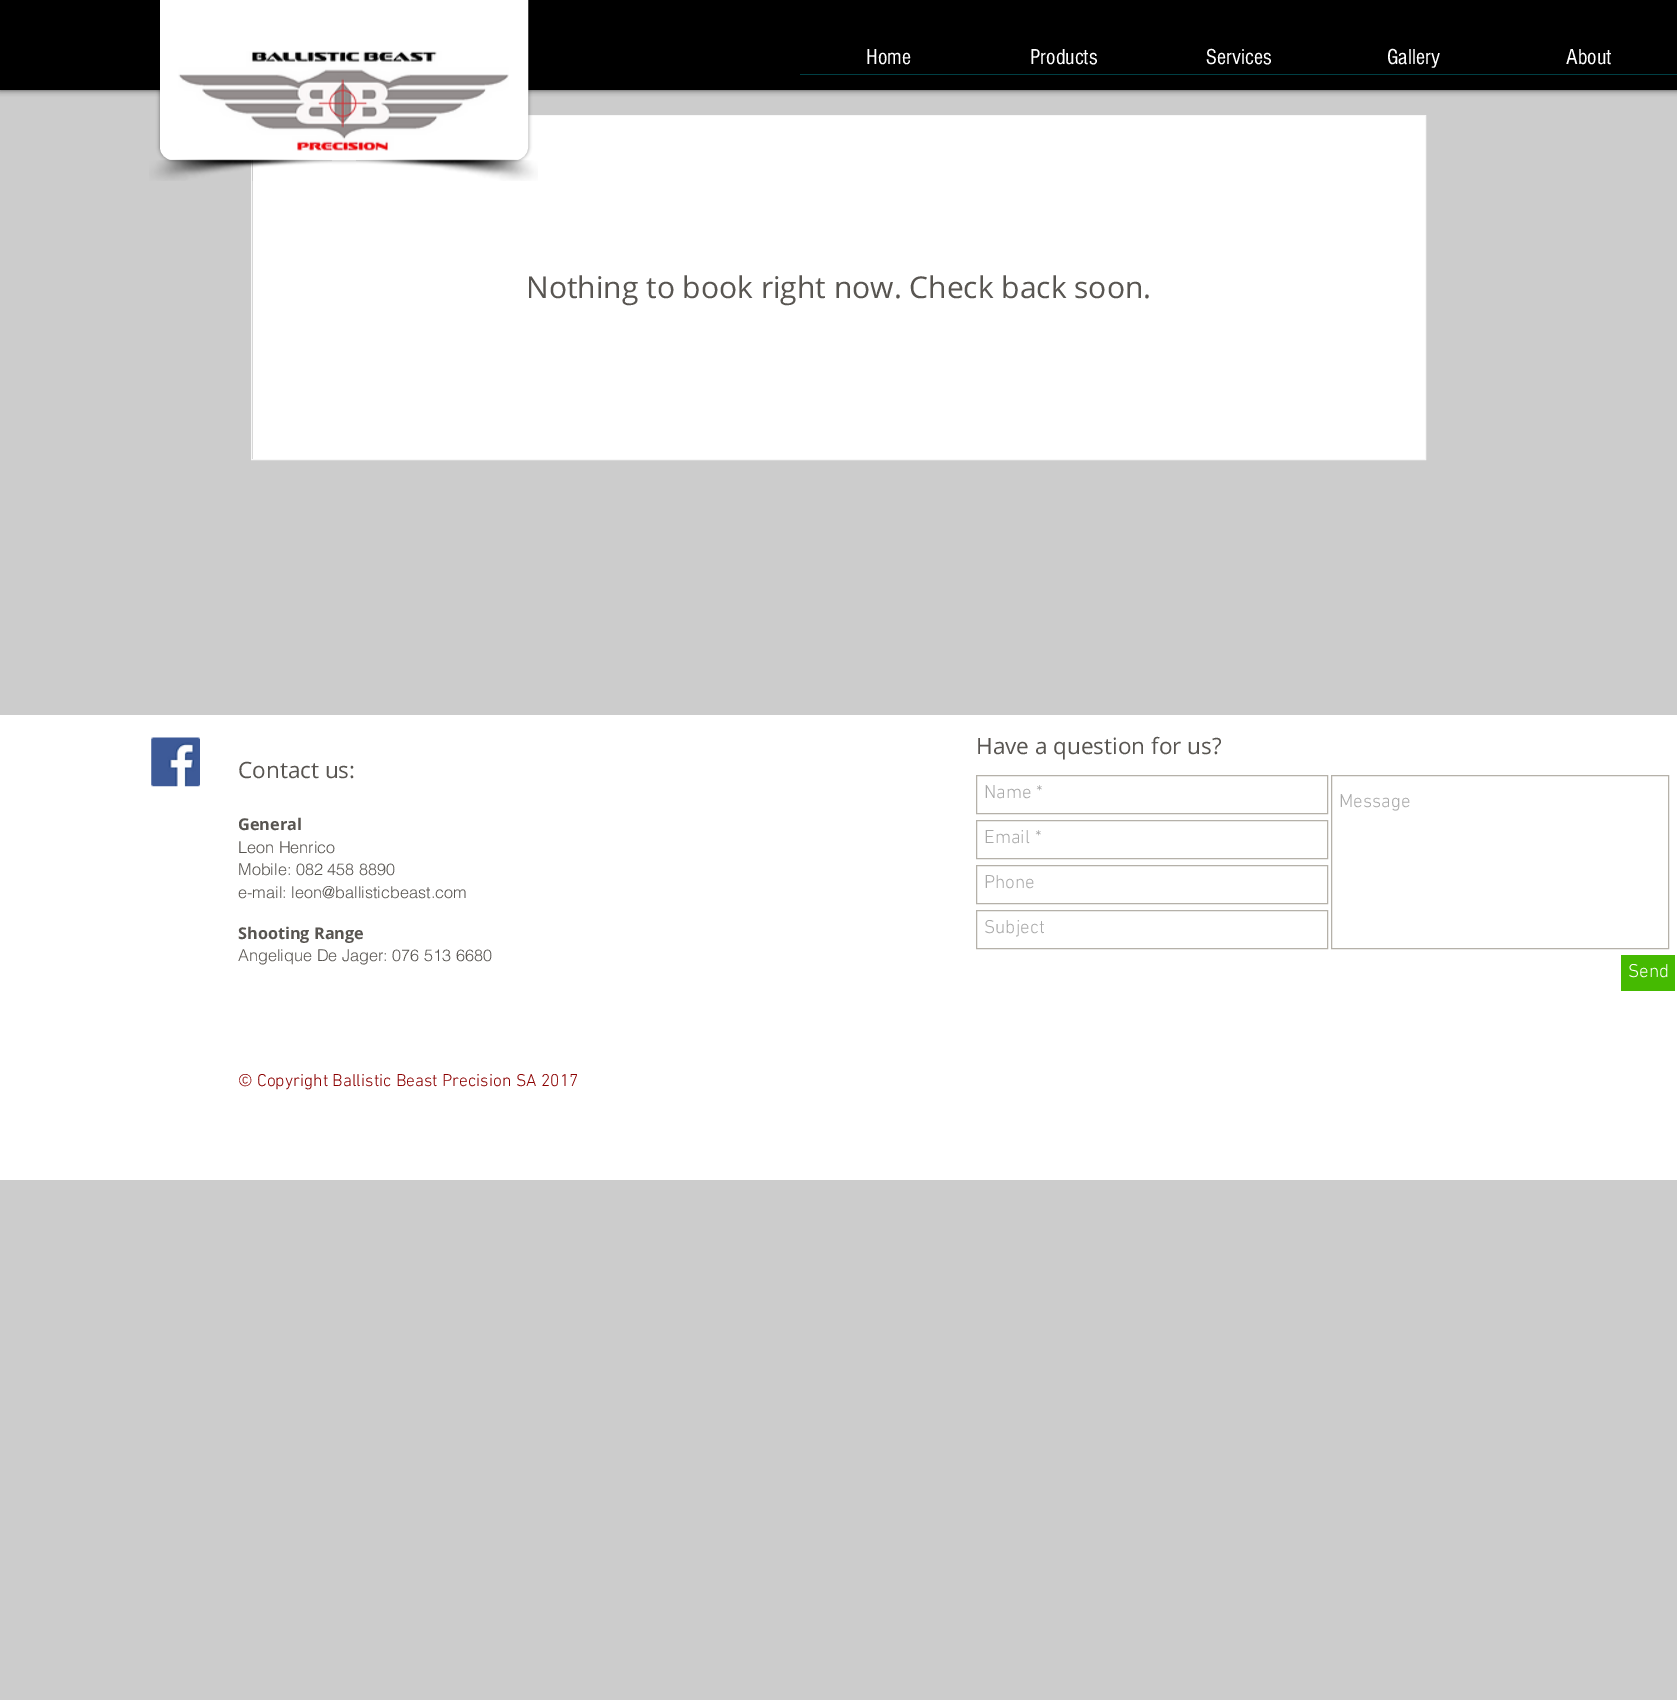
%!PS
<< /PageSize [1677 1700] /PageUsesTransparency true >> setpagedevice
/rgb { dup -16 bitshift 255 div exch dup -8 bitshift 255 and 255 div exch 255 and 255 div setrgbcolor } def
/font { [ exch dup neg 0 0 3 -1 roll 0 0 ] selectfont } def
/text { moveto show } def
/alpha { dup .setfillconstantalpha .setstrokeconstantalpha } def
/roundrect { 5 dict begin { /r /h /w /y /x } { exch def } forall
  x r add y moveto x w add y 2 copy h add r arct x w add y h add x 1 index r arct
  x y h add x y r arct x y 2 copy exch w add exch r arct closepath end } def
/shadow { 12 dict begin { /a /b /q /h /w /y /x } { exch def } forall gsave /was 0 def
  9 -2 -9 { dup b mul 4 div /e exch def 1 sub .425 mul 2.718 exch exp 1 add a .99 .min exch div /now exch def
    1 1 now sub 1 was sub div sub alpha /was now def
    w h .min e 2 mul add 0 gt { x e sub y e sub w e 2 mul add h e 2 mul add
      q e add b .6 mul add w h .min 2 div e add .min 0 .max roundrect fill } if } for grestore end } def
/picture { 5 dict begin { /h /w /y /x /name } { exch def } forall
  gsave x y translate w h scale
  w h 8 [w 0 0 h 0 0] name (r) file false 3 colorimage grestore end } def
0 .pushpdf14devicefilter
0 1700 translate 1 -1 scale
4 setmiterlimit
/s1 { /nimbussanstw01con-Regular 22.5 font 16#FFFFFF rgb } def
/s2 { /OpenSans-Regular 30 font 16#585551 rgb } def
/s3 { /OpenSans-Regular 22.5 font 16#585551 rgb } def
/s4 { /OpenSans-Bold 16.25 font 16#585551 rgb } def
/s5 { /helvetica-Light 16.25 font 16#585551 rgb } def
/s6 { /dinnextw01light-Light 19 font 16#A9A9A9 rgb } def
/s7 { /dinnextw01light-Light 19 font 16#FFFFFF rgb } def
/s8 { /dinnextw01light-Light 17.5 font 16#8B0000 rgb } def
16#CCCCCC rgb
0 0 1677 1700 rectfill
16#000000 rgb
0 0 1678 90 0 3 0.7 shadow
0 0 1677 90 rectfill
16#F8F8F8 rgb
251.5 115.5 1174 344 rectstroke
16#FFFFFF rgb
253 116 1172 343 rectfill
16#000000 rgb
160 0 368 160 13 2 0.5 shadow
16#FFFFFF rgb
162 2 moveto 526 2 lineto 526 147 lineto 526 153 521 158 515 158 curveto 173 158 lineto 167 158 162 153 162 147 curveto closepath gsave fill grestore
4 setlinewidth
stroke
(pic1.raw) 178 51 331 100 picture
(pic2.raw) 149 159 183 22 picture
(pic3.raw) 356 159 182 22 picture
s1
(Home) 866 64 text
(Products) 1030 64 text
(Services) 1206 64 text
(Gallery) 1387 64 text
(About) 1566 64 text
16#003F44 rgb
800 74 877 1 rectfill
s2
(Nothing to book right now. Check back soon.) 526 298 text
16#FFFFFF rgb
0 715 1677 465 rectfill
(pic4.raw) 151 737 49 50 picture
s3
(Contact us:) 238 778 text
s4
(General) 238 830 text
s5
(Leon Henrico) 238 853 text
(Mobile: 082 458 8890) 238 875 text
(e-mail: leon@ballisticbeast.com) 238 898 text
s4
(Shooting Range) 238 939 text
s5
(Angelique De Jager: 076 513 6680) 238 961 text
s3
(Have a question for us?) 976 754 text
16#B5B1A9 rgb
1 setlinewidth
976.5 775.5 351 38 rectstroke
s6
(Name *) 984 798 text
16#B5B1A9 rgb
1331.5 775.5 337 173 rectstroke
s6
(Message) 1339 807 text
16#B5B1A9 rgb
976.5 820.5 351 38 rectstroke
s6
(Email *) 984 843 text
16#B5B1A9 rgb
976.5 865.5 351 38 rectstroke
s6
(Phone) 984 888 text
16#B5B1A9 rgb
976.5 910.5 351 38 rectstroke
s6
(Subject) 984 933 text
16#45BA01 rgb
1621 955 54 36 rectfill
s7
(Send) 1628 977 text
s8
(© Copyright Ballistic Beast Precision SA 2017) 238 1086 text
.poppdf14devicefilter showpage
